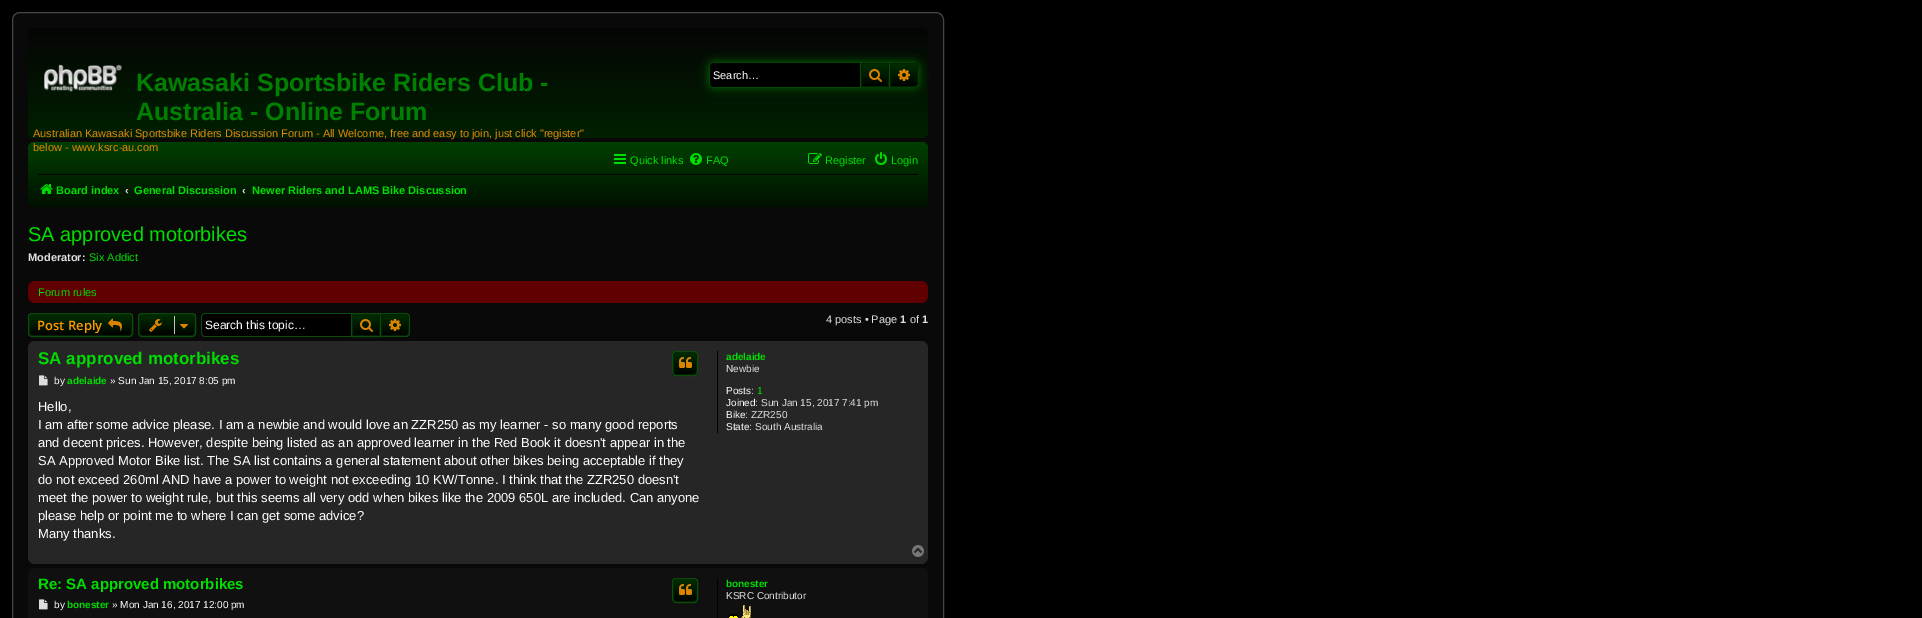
%!PS
<< /PageSize [1922 618] /PageUsesTransparency true >> setpagedevice
/rgb { dup -16 bitshift 255 div exch dup -8 bitshift 255 and 255 div exch 255 and 255 div setrgbcolor } def
/font { [ exch dup neg 0 0 3 -1 roll 0 0 ] selectfont } def
/text { moveto show } def
/alpha { dup .setfillconstantalpha .setstrokeconstantalpha } def
/roundrect { 5 dict begin { /r /h /w /y /x } { exch def } forall
  x r add y moveto x w add y 2 copy h add r arct x w add y h add x 1 index r arct
  x y h add x y r arct x y 2 copy exch w add exch r arct closepath end } def
/shadow { 12 dict begin { /a /b /q /h /w /y /x } { exch def } forall gsave /was 0 def
  9 -2 -9 { dup b mul 4 div /e exch def 1 sub .425 mul 2.718 exch exp 1 add a .99 .min exch div /now exch def
    1 1 now sub 1 was sub div sub alpha /was now def
    w h .min e 2 mul add 0 gt { x e sub y e sub w e 2 mul add h e 2 mul add
      q e add b .6 mul add w h .min 2 div e add .min 0 .max roundrect fill } if } for grestore end } def
/picture { 5 dict begin { /h /w /y /x /name } { exch def } forall
  gsave x y translate w h scale
  w h 8 [w 0 0 h 0 0] name (r) file false 3 colorimage grestore end } def
0 .pushpdf14devicefilter
0 618 translate 1 -1 scale
4 setmiterlimit
/s1 { /LiberationSans-Bold 25 font 16#008000 rgb } def
/s2 { /LiberationSans-Regular 11 font 16#E3860A rgb } def
/s3 { /LiberationSans-Regular 11 font 16#FFFFFF rgb } def
/s4 { /LiberationSans-Regular 11 font 16#00DD00 rgb } def
/s5 { /LiberationSans-Bold 11 font 16#00DD00 rgb } def
/s6 { /LiberationSans-Bold 11 font 16#E0E0E0 rgb } def
/s7 { /LiberationSans-Regular 20 font 16#00DD00 rgb } def
/s8 { /OpenSans-SemiBold 13 font 16#FF9900 rgb } def
/s9 { /LiberationSans-Regular 12 font 16#FFFFFF rgb } def
/s10 { /LiberationSans-Regular 11 font 16#E0E0E0 rgb } def
/s11 { /LiberationSans-Bold 17 font 16#00DD00 rgb } def
/s12 { /LiberationSans-Regular 10 font 16#FFFFFF rgb } def
/s13 { /LiberationSans-Bold 10 font 16#00DD00 rgb } def
/s14 { /LiberationSans-Regular 13 font 16#FFFFFF rgb } def
/s15 { /LiberationSans-Regular 10 font 16#E0E0E0 rgb } def
/s16 { /LiberationSans-Regular 10 font 16#00DD00 rgb } def
/s17 { /LiberationSans-Bold 15 font 16#00DD00 rgb } def
16#000000 rgb
0 0 1922 618 rectfill
16#090909 rgb
12.5 12.5 931 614 7.5 roundrect gsave fill grestore
16#454545 rgb
stroke
gsave 28 28 900 110 7 roundrect clip newpath
<< /ShadingType 2 /ColorSpace /DeviceRGB /Coords [478 28 478 138] /Extend [true true] /Function << /FunctionType 2 /Domain [0 1] /C0 [0.02 0.02 0.02] /C1 [0 0.125 0] /N 1 >> >> shfill grestore
(pic1.raw) 44 64 78 28 picture
s1
(Kawasaki Sportsbike Riders Club -) 136 91 text
(Australia - Online Forum) 136 120 text
s2
(Australian Kawasaki Sportsbike Riders Discussion Forum - All Welcome, free and easy to join, just click "register") 33 137 text
gsave 28 142 900 65 7 roundrect clip newpath
<< /ShadingType 2 /ColorSpace /DeviceRGB /Coords [478 142 478 207] /Extend [true true] /Function << /FunctionType 2 /Domain [0 1] /C0 [0 0.251 0] /C1 [0 0.063 0] /N 1 >> >> shfill grestore
(below - www.ksrc-au.com) 33 151 text
16#007F00 rgb
710 63 208 24 4 5 1 shadow
16#000000 rgb
714 63 moveto 860 63 lineto 860 87 lineto 714 87 lineto 712 87 710 85 710 83 curveto 710 67 lineto 710 65 712 63 714 63 curveto closepath fill
s3
(Search…) 713 79 text
gsave 862 64 moveto 888 64 lineto 888 86 lineto 862 86 lineto closepath clip newpath
<< /ShadingType 2 /ColorSpace /DeviceRGB /Coords [875 63 875 87] /Extend [true true] /Function << /FunctionType 2 /Domain [0 1] /C0 [0 0.188 0] /C1 [0 0 0] /N 1 >> >> shfill grestore
16#002000 rgb
861.5 63.5 27 23 rectstroke
16#0C4B0C rgb
889 63 1 24 rectfill
860 63 1 24 rectfill
(pic2.raw) 869 69 13 13 picture
gsave 890.5 63.5 moveto 914 63.5 lineto 916 63.5 917.5 65 917.5 67 curveto 917.5 83 lineto 917.5 85 916 86.5 914 86.5 curveto 890.5 86.5 lineto closepath clip newpath
<< /ShadingType 2 /ColorSpace /DeviceRGB /Coords [904 63 904 87] /Extend [true true] /Function << /FunctionType 2 /Domain [0 1] /C0 [0 0.188 0] /C1 [0 0 0] /N 1 >> >> shfill grestore
16#002000 rgb
890.5 63.5 moveto 914 63.5 lineto 916 63.5 917.5 65 917.5 67 curveto 917.5 83 lineto 917.5 85 916 86.5 914 86.5 curveto 890.5 86.5 lineto closepath stroke
(pic3.raw) 898 69 12 12 picture
(pic4.raw) 614 154 12 10 picture
s4
(Quick links) 630 164 text
(pic5.raw) 690 153 12 12 picture
(FAQ) 706 164 text
(pic6.raw) 808 153 14 11 picture
(Register) 825 164 text
(pic7.raw) 875 152 12 13 picture
(Login) 891 164 text
16#000000 rgb
38 174 880 1 rectfill
(pic8.raw) 40 184 13 10 picture
s5
(Board index) 56 194 text
s6
(‹) 125 194 text
s5
(General Discussion) 134 194 text
s6
(‹) 242 194 text
s5
(Newer Riders and LAMS Bike Discussion) 252 194 text
s7
(SA approved motorbikes) 28 241 text
s6
(Moderator:) 28 261 text
s4
(Six Addict) 89 261 text
16#600000 rgb
28 281 900 22 7 roundrect fill
s4
(Forum rules) 38 296 text
gsave
28 313 105 24 4 roundrect clip newpath
gsave 28 314 moveto 133 314 lineto 133 336 lineto 28 336 lineto closepath clip newpath
<< /ShadingType 2 /ColorSpace /DeviceRGB /Coords [81 314 81 336] /Extend [true true] /Function << /FunctionType 2 /Domain [0 1] /C0 [0 0.188 0] /C1 [0 0 0] /N 1 >> >> shfill grestore
grestore
16#002000 rgb
29.5 314.5 102 21 2.5 roundrect stroke
16#0C4B0C rgb
28.5 313.5 104 23 3.5 roundrect stroke
s8
(Post Reply) 37 330 text
(pic9.raw) 108 318 14 13 picture
gsave
138 313 58 24 4 roundrect clip newpath
gsave 138 314 moveto 196 314 lineto 196 336 lineto 138 336 lineto closepath clip newpath
<< /ShadingType 2 /ColorSpace /DeviceRGB /Coords [167 314 167 336] /Extend [true true] /Function << /FunctionType 2 /Domain [0 1] /C0 [0 0.188 0] /C1 [0 0 0] /N 1 >> >> shfill grestore
grestore
16#002000 rgb
139.5 314.5 55 21 2.5 roundrect stroke
16#0C4B0C rgb
138.5 313.5 57 23 3.5 roundrect stroke
(pic10.raw) 149 319 13 13 picture
16#C7C3BF rgb
174 316 1 18 rectfill
(pic11.raw) 180 324 8 5 picture
16#000000 rgb
205 314 moveto 351 314 lineto 351 336 lineto 205 336 lineto 203.5 336 202 334.5 202 333 curveto 202 317 lineto 202 315.5 203.5 314 205 314 curveto closepath fill
16#0C4B0C rgb
205 313 moveto 351 313 lineto 351 337 lineto 205 337 lineto 203 337 201 335 201 333 curveto 201 317 lineto 201 315 203 313 205 313 curveto closepath 205 314 moveto 351 314 lineto 351 336 lineto 205 336 lineto 203 336 202 335 202 333 curveto 202 317 lineto 202 315 203 314 205 314 curveto closepath eofill
s9
(Search this topic…) 205 329 text
gsave 353 315 moveto 379 315 lineto 379 335 lineto 353 335 lineto closepath clip newpath
<< /ShadingType 2 /ColorSpace /DeviceRGB /Coords [366 314 366 336] /Extend [true true] /Function << /FunctionType 2 /Domain [0 1] /C0 [0 0.188 0] /C1 [0 0 0] /N 1 >> >> shfill grestore
16#002000 rgb
352.5 314.5 27 21 rectstroke
16#0C4B0C rgb
351.5 313.5 29 23 rectstroke
(pic12.raw) 360 319 13 13 picture
gsave 381.5 314.5 moveto 406 314.5 lineto 407.5 314.5 408.5 315.5 408.5 317 curveto 408.5 333 lineto 408.5 334.5 407.5 335.5 406 335.5 curveto 381.5 335.5 lineto closepath clip newpath
<< /ShadingType 2 /ColorSpace /DeviceRGB /Coords [395 314 395 336] /Extend [true true] /Function << /FunctionType 2 /Domain [0 1] /C0 [0 0.188 0] /C1 [0 0 0] /N 1 >> >> shfill grestore
16#002000 rgb
381.5 314.5 moveto 406 314.5 lineto 407.5 314.5 408.5 315.5 408.5 317 curveto 408.5 333 lineto 408.5 334.5 407.5 335.5 406 335.5 curveto 381.5 335.5 lineto closepath stroke
16#0C4B0C rgb
381 313 moveto 406 313 lineto 408 313 410 315 410 317 curveto 410 333 lineto 410 335 408 337 406 337 curveto 381 337 lineto closepath 381 314 moveto 406 314 lineto 407.5 314 409 315.5 409 317 curveto 409 333 lineto 409 334.5 407.5 336 406 336 curveto 381 336 lineto closepath eofill
(pic13.raw) 389 319 12 12 picture
s10
(4 posts • Page) 826 323 text
s6
(1) 900 323 text
s10
(of) 910 323 text
s6
(1) 922 323 text
16#262626 rgb
28 341 900 223 7 roundrect fill
s11
(SA approved motorbikes) 38 364 text
gsave
672 351 26 25 4 roundrect clip newpath
gsave 672 352 moveto 698 352 lineto 698 375 lineto 672 375 lineto closepath clip newpath
<< /ShadingType 2 /ColorSpace /DeviceRGB /Coords [685 352 685 375] /Extend [true true] /Function << /FunctionType 2 /Domain [0 1] /C0 [0 0.188 0] /C1 [0 0 0] /N 1 >> >> shfill grestore
grestore
16#002000 rgb
673.5 352.5 23 22 2.5 roundrect stroke
16#0C4B0C rgb
672.5 351.5 25 24 3.5 roundrect stroke
(pic14.raw) 679 357 13 11 picture
(pic15.raw) 39 375 9 11 picture
s12
(by) 54 384 text
s13
(adelaide) 67 384 text
s12
(» Sun Jan 15, 2017 8:05 pm) 110 384 text
s14
(Hello,) 38 411 text
(I am after some advice please. I am a newbie and would love an ZZR250 as my learner - so many good reports) 38 429 text
(and decent prices. However, despite being listed as an approved learner in the Red Book it doesn't appear in the) 38 447 text
(SA Approved Motor Bike list. The SA list contains a general statement about other bikes being acceptable if they) 38 465 text
(do not exceed 260ml AND have a power to weight not exceeding 10 KW/Tonne. I think that the ZZR250 doesn't) 38 484 text
(meet the power to weight rule, but this seems all very odd when bikes like the 2009 650L are included. Can anyone) 38 502 text
(please help or point me to where I can get some advice?) 38 520 text
(Many thanks.) 38 538 text
16#000000 rgb
717 351 1 82 rectfill
s13
(adelaide) 726 360 text
s15
(Newbie) 726 372 text
s12
(Posts:) 726 394 text
s16
(1) 757 394 text
s12
(Joined:) 726 406 text
s15
(Sun Jan 15, 2017 7:41 pm) 761 406 text
s12
(Bike:) 726 418 text
s15
(ZZR250) 751 418 text
s12
(State:) 726 430 text
s15
(South Australia) 755 430 text
(pic16.raw) 912 545 12 12 picture
16#101010 rgb
28 568 900 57 7 roundrect fill
s17
(Re: SA approved motorbikes) 38 589 text
gsave
672 578 26 25 4 roundrect clip newpath
gsave 672 579 moveto 698 579 lineto 698 602 lineto 672 602 lineto closepath clip newpath
<< /ShadingType 2 /ColorSpace /DeviceRGB /Coords [685 579 685 602] /Extend [true true] /Function << /FunctionType 2 /Domain [0 1] /C0 [0 0.188 0] /C1 [0 0 0] /N 1 >> >> shfill grestore
grestore
16#002000 rgb
673.5 579.5 23 22 2.5 roundrect stroke
16#0C4B0C rgb
672.5 578.5 25 24 3.5 roundrect stroke
(pic14.raw) 679 584 13 11 picture
(pic17.raw) 39 599 9 11 picture
s12
(by) 54 608 text
s13
(bonester) 67 608 text
s12
(» Mon Jan 16, 2017 12:00 pm) 112 608 text
16#000000 rgb
717 578 1 40 rectfill
s13
(bonester) 726 587 text
s15
(KSRC Contributor) 726 599 text
(pic18.raw) 728 605 23 13 picture
.poppdf14devicefilter showpage
